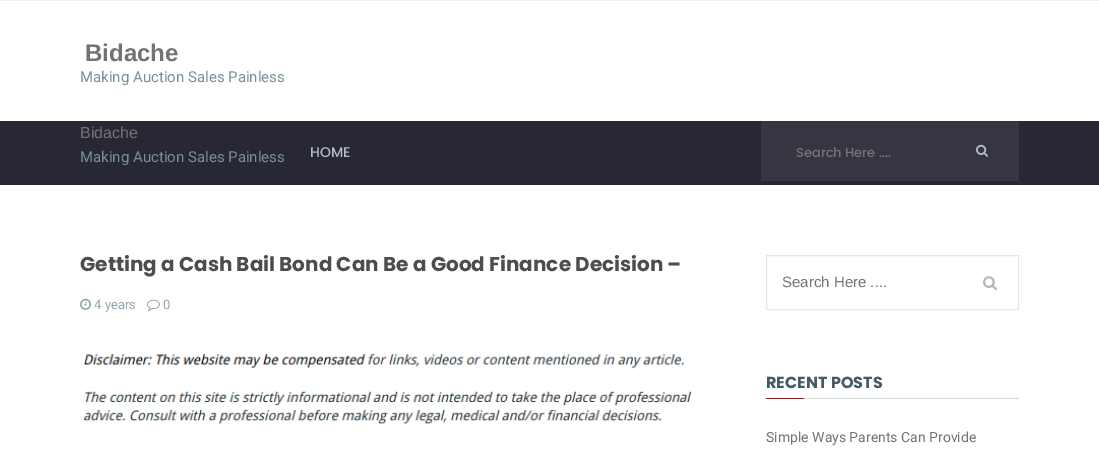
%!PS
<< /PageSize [1099 451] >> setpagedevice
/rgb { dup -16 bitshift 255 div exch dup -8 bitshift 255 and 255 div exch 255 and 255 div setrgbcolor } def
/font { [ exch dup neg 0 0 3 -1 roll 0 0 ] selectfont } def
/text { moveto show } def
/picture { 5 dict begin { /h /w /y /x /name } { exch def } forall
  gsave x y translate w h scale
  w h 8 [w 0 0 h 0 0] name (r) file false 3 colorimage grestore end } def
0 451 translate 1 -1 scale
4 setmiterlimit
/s1 { /LiberationSans-Bold 24 font 16#737373 rgb } def
/s2 { /Roboto-Regular 15 font 16#78909C rgb } def
/s3 { /LiberationSans-Regular 16 font 16#737373 rgb } def
/s4 { /Poppins-Medium 14 font 16#B0BEC5 rgb } def
/s5 { /Poppins-Medium 13 font 16#737373 rgb } def
/s6 { /Poppins-Bold 20 font 16#4D4D4D rgb } def
/s7 { /Roboto-Regular 13 font 16#90A4AE rgb } def
/s8 { /LiberationSans-Regular 15 font 16#737373 rgb } def
/s9 { /Poppins-Bold 16 font 16#455A64 rgb } def
/s10 { /Roboto-Regular 14 font 16#737373 rgb } def
16#FFFFFF rgb
0 0 1099 451 rectfill
16#ECEFF1 rgb
0 0 1099 1 rectfill
s1
(Bidache) 85 61 text
s2
(Making Auction Sales Painless) 80 82 text
16#272833 rgb
0 121 1099 64 rectfill
s3
(Bidache) 80 138 text
s2
(Making Auction Sales Painless) 80 162 text
s4
(HOME) 310 157 text
16#353641 rgb
761 121 258 60 rectfill
s5
(Search Here ....) 796 157 text
(pic1.raw) 976 144 12 13 picture
s6
(Getting a Cash Bail Bond Can Be a Good Finance Decision –) 80 271 text
(pic2.raw) 80 298 12 12 picture
s7
(4 years) 94 309 text
(pic3.raw) 147 299 13 12 picture
(0) 163 309 text
(pic4.raw) 83 353 609 72 picture
16#E6E6E6 rgb
766.5 255.5 252 54 rectstroke
s8
(Search Here ....) 782 287 text
(pic5.raw) 983 276 14 15 picture
s9
(RECENT POSTS) 766 388 text
16#D50000 rgb
766 398 38 1 rectfill
16#CFD8DC rgb
804 398 215 1 rectfill
s10
(Simple Ways Parents Can Provide) 766 442 text
showpage
